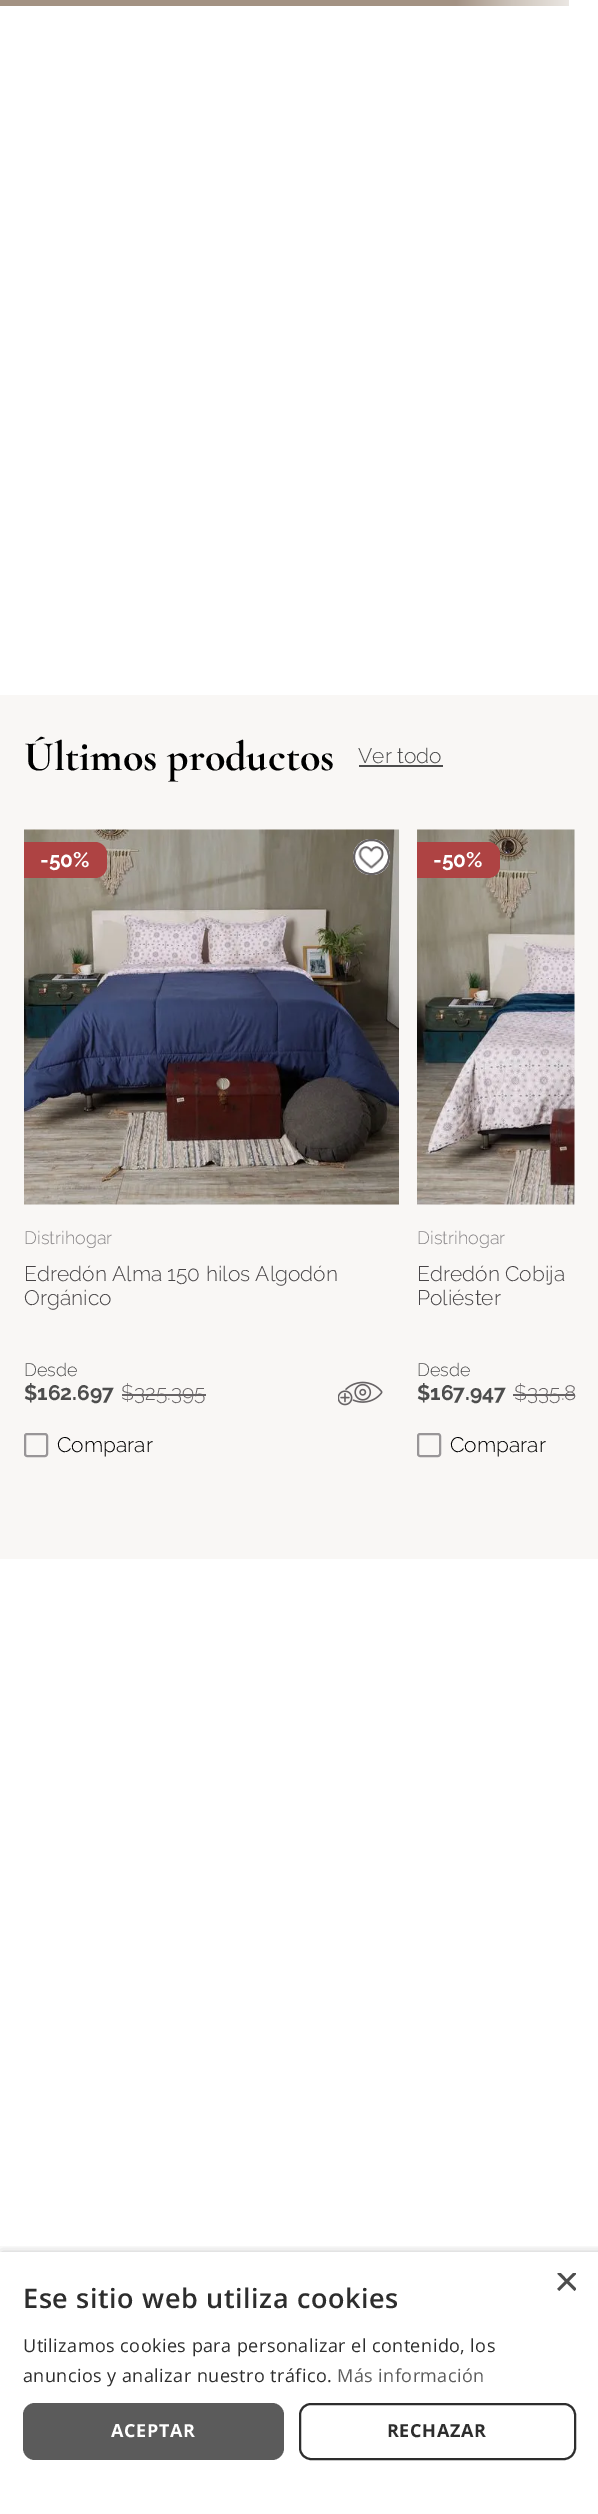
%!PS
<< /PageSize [598 2514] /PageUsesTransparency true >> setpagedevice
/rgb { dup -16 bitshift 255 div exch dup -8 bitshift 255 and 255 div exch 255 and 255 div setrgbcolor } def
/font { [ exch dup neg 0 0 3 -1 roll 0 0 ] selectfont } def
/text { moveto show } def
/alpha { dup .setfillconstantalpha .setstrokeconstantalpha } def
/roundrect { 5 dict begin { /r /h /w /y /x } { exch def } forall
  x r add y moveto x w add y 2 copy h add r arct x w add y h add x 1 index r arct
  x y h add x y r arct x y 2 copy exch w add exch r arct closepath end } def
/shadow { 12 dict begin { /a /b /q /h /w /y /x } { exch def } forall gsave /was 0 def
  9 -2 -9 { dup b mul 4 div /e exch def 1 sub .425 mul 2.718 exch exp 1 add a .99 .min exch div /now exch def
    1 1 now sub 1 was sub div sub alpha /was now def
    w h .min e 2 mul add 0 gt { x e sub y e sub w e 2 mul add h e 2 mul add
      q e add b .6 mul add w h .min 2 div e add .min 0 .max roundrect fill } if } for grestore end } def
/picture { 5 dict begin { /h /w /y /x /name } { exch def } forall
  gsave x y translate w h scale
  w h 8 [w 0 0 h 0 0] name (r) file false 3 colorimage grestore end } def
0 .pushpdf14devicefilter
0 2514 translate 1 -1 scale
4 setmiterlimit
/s1 { /CormorantGaramond-Bold 42 font 16#000000 rgb } def
/s2 { /Raleway-Light 21 font 16#4D4D4D rgb } def
/s3 { /Raleway-Bold 21 font 16#FFFFFF rgb } def
/s4 { /Raleway-Light 18 font 16#858284 rgb } def
/s5 { /Raleway-Light 21 font 16#494648 rgb } def
/s6 { /Raleway-Light 18 font 16#4D4D4D rgb } def
/s7 { /Raleway-Bold 21 font 16#4D4D4D rgb } def
/s8 { /Raleway-Light 21 font 16#676365 rgb } def
/s9 { /Raleway-Light 21 font 16#000000 rgb } def
/s10 { /LiberationSans-Regular 44 font 16#4D4D4D rgb } def
16#FFFFFF rgb
0 0 598 2514 rectfill
gsave 0 0 moveto 569 0 lineto 569 6 lineto 0 6 lineto closepath clip newpath
<< /ShadingType 2 /ColorSpace /DeviceRGB /Coords [0 3 569 3] /Extend [true true] /Function << /FunctionType 3 /Domain [0 1] /Functions [<< /FunctionType 2 /Domain [0 1] /C0 [0.639 0.573 0.514] /C1 [0.639 0.573 0.514] /N 1 >> << /FunctionType 2 /Domain [0 1] /C0 [0.639 0.573 0.514] /C1 [0.8 0.765 0.729] /N 1 >> << /FunctionType 2 /Domain [0 1] /C0 [0.8 0.765 0.729] /C1 [0.922 0.906 0.89] /N 1 >>] /Bounds [0.8 0.9] /Encode [0 1 0 1 0 1] >> >> shfill grestore
16#F9F7F5 rgb
0 695 598 864 rectfill
s1
(Últimos productos) 24 770 text
s2
(Ver todo) 358 763 text
359 765 84 2 rectfill
(pic1.raw) 24 829 375 376 picture
16#AE4343 rgb
24 842 moveto 95 842 lineto 101.5 842 107 847.5 107 854 curveto 107 866 lineto 107 872.5 101.5 878 95 878 curveto 24 878 lineto closepath fill
s3
(-50%) 40 867 text
353 839 37 36 18 roundrect fill
(pic2.raw) 358 846 26 23 picture
16#676365 rgb
2 setlinewidth
354 840 35 34 17 roundrect stroke
s4
(Distrihogar) 24 1244 text
s5
(Edredón Alma 150 hilos Algodón) 24 1281 text
(Orgánico) 24 1305 text
s6
(Desde) 24 1376 text
s7
($162.697) 24 1400 text
s8
($325.395) 121 1400 text
122 1394 84 2 rectfill
(pic3.raw) 338 1381 45 25 picture
16#999698 rgb
25 1434 22 22 2 roundrect stroke
s9
(Comparar) 57 1452 text
(pic4.raw) 417 829 158 376 picture
16#AE4343 rgb
417 842 moveto 488 842 lineto 494.5 842 500 847.5 500 854 curveto 500 866 lineto 500 872.5 494.5 878 488 878 curveto 417 878 lineto closepath fill
s3
(-50%) 433 867 text
s4
(Distrihogar) 417 1244 text
s5
(Edredón Cobija) 417 1281 text
(Poliéster) 417 1305 text
s6
(Desde) 417 1376 text
s7
($167.947) 417 1400 text
s8
($335.8) 514 1400 text
513 1394 62 2 rectfill
16#999698 rgb
418 1434 22 22 2 roundrect stroke
s9
(Comparar) 450 1452 text
gsave
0 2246 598 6 rectclip
2 2255 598 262 0 6 0.35 shadow
grestore
gsave
554 2273 22 22 rectclip
s10
(×) 554 2296 text
grestore
/OpenSans-SemiBold 27 font
16#2D2D2D rgb
23 2308 moveto 0.6 0 (Ese sitio web utiliza cookies) ashow
/OpenSans-Regular 18 font
23 2352 moveto 0.45 0 (Utilizamos cookies para personalizar el contenido, los) ashow
23 2382 moveto 0.45 0 (anuncios y analizar nuestro tráfico.) ashow
16#5B5B5B rgb
337 2382 moveto 0.45 0 (Más información) ashow
23 2403 261 57 12 roundrect fill
/OpenSans-Bold 18 font
16#FFFFFF rgb
111 2437 moveto 0.6 0 (ACEPTAR) ashow
16#2D2D2D rgb
300 2404 275 55 11 roundrect stroke
387 2437 moveto 0.6 0 (RECHAZAR) ashow
.poppdf14devicefilter showpage
